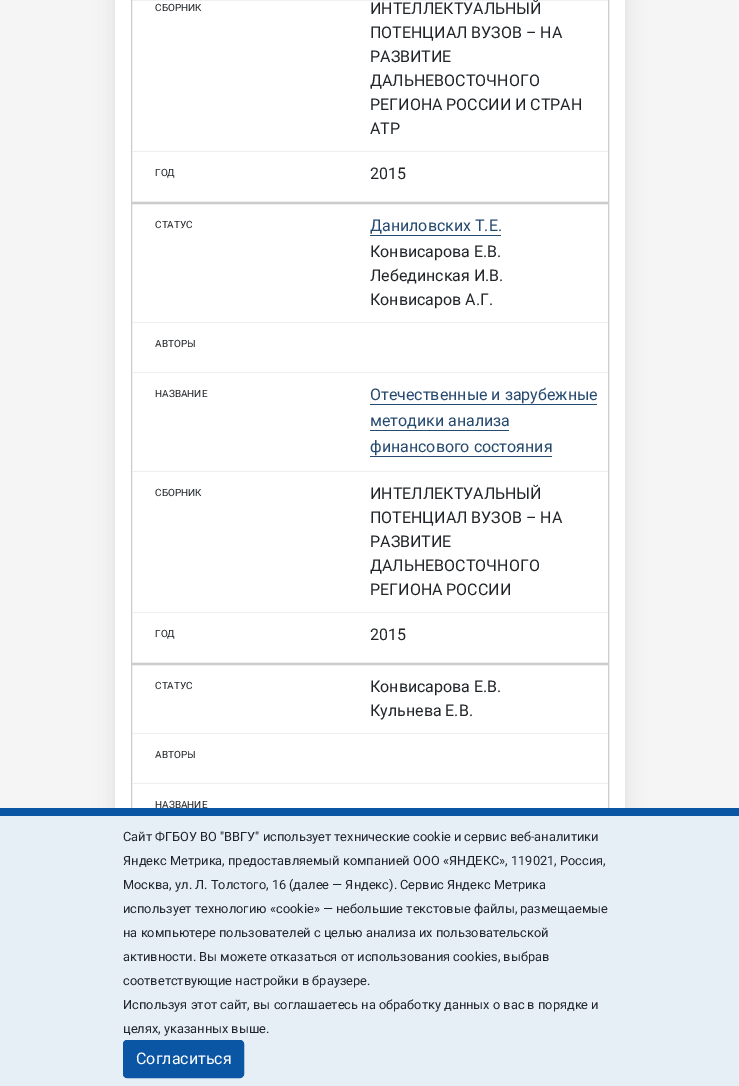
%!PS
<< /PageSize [739 1086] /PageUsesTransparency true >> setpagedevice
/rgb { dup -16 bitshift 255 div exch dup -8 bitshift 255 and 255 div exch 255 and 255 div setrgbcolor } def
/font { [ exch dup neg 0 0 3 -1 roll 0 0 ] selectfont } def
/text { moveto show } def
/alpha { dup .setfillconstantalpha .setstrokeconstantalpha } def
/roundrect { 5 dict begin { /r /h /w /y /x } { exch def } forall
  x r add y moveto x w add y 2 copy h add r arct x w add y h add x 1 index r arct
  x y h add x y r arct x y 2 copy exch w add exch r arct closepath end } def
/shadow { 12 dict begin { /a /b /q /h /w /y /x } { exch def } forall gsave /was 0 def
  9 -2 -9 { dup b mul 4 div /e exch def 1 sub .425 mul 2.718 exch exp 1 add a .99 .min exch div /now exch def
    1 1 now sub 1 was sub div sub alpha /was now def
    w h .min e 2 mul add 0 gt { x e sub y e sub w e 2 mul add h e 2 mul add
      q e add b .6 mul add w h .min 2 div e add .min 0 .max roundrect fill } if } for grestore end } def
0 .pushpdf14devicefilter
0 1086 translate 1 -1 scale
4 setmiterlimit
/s1 { /Roboto-Regular 10 font 16#212529 rgb } def
/s2 { /Roboto-Regular 16 font 16#212529 rgb } def
/s3 { /Roboto-Regular 16 font 16#264A6F rgb } def
/s4 { /Roboto-Regular 12.8 font 16#212529 rgb } def
/s5 { /Roboto-Regular 16 font 16#FFFFFF rgb } def
16#F5F5F5 rgb
0 0 739 1086 rectfill
16#000000 rgb
115 -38 510 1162 8 10 0.09 shadow
16#FFFFFF rgb
115 0 510 808 rectfill
16#CCCCCC rgb
131.5 -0.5 477 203 rectstroke
16#EEEEEE rgb
132 151 476 1 rectfill
s1
(СБОРНИК) 155 11 text
s2
(ИНТЕЛЛЕКТУАЛЬНЫЙ) 370 14 text
(ПОТЕНЦИАЛ ВУЗОВ – НА) 370 38 text
(РАЗВИТИЕ) 370 62 text
(ДАЛЬНЕВОСТОЧНОГО) 370 86 text
(РЕГИОНА РОССИИ И СТРАН) 370 110 text
(АТР) 370 134 text
16#EEEEEE rgb
132 201 476 1 rectfill
s1
(ГОД) 155 176 text
s2
(2015) 370 179 text
16#CCCCCC rgb
131.5 203.5 477 460 rectstroke
16#EEEEEE rgb
132 322 476 1 rectfill
s1
(СТАТУС) 155 228 text
s3
(Даниловских Т.Е.) 370 231 text
370 235 131 1 rectfill
s2
(Конвисарова Е.В.) 370 257 text
(Лебединская И.В.) 370 281 text
(Конвисаров А.Г.) 370 305 text
16#EEEEEE rgb
132 372 476 1 rectfill
s1
(АВТОРЫ) 155 347 text
16#EEEEEE rgb
132 471 476 1 rectfill
s1
(НАЗВАНИЕ) 155 397 text
s3
(Отечественные и зарубежные) 370 400 text
370 404 227 1 rectfill
(методики анализа) 370 426 text
370 430 139 1 rectfill
(финансового состояния) 370 452 text
370 456 182 1 rectfill
16#EEEEEE rgb
132 612 476 1 rectfill
s1
(СБОРНИК) 155 496 text
s2
(ИНТЕЛЛЕКТУАЛЬНЫЙ) 370 499 text
(ПОТЕНЦИАЛ ВУЗОВ – НА) 370 523 text
(РАЗВИТИЕ) 370 547 text
(ДАЛЬНЕВОСТОЧНОГО) 370 571 text
(РЕГИОНА РОССИИ) 370 595 text
16#EEEEEE rgb
132 662 476 1 rectfill
s1
(ГОД) 155 637 text
s2
(2015) 370 640 text
16#CCCCCC rgb
131.5 664.5 477 362 rectstroke
16#EEEEEE rgb
132 733 476 1 rectfill
s1
(СТАТУС) 155 689 text
s2
(Конвисарова Е.В.) 370 692 text
(Кульнева Е.В.) 370 716 text
16#EEEEEE rgb
132 783 476 1 rectfill
s1
(АВТОРЫ) 155 758 text
(НАЗВАНИЕ) 155 808 text
16#E6EEF6 rgb
0 816 739 270 rectfill
16#0A56A4 rgb
0 808 739 8 rectfill
s4
(Cайт ФГБОУ ВО "ВВГУ" использует технические cookie и сервис веб-аналитики) 123 841 text
(Яндекс Метрика, предоставляемый компанией ООО «ЯНДЕКС», 119021, Россия,) 123 865 text
(Москва, ул. Л. Толстого, 16 \(далее — Яндекс\). Сервис Яндекс Метрика) 123 889 text
(использует технологию «cookie» — небольшие текстовые файлы, размещаемые) 123 913 text
(на компьютере пользователей с целью анализа их пользовательской) 123 937 text
(активности. Вы можете отказаться от использования cookies, выбрав) 123 961 text
(соответствующие настройки в браузере.) 123 985 text
(Используя этот сайт, вы соглашаетесь на обработку данных о вас в порядке и) 123 1009 text
(целях, указанных выше.) 123 1033 text
16#0A56A4 rgb
123.5 1040.5 120 37 3.5 roundrect gsave fill grestore
stroke
s5
(Согласиться) 136 1064 text
.poppdf14devicefilter showpage
